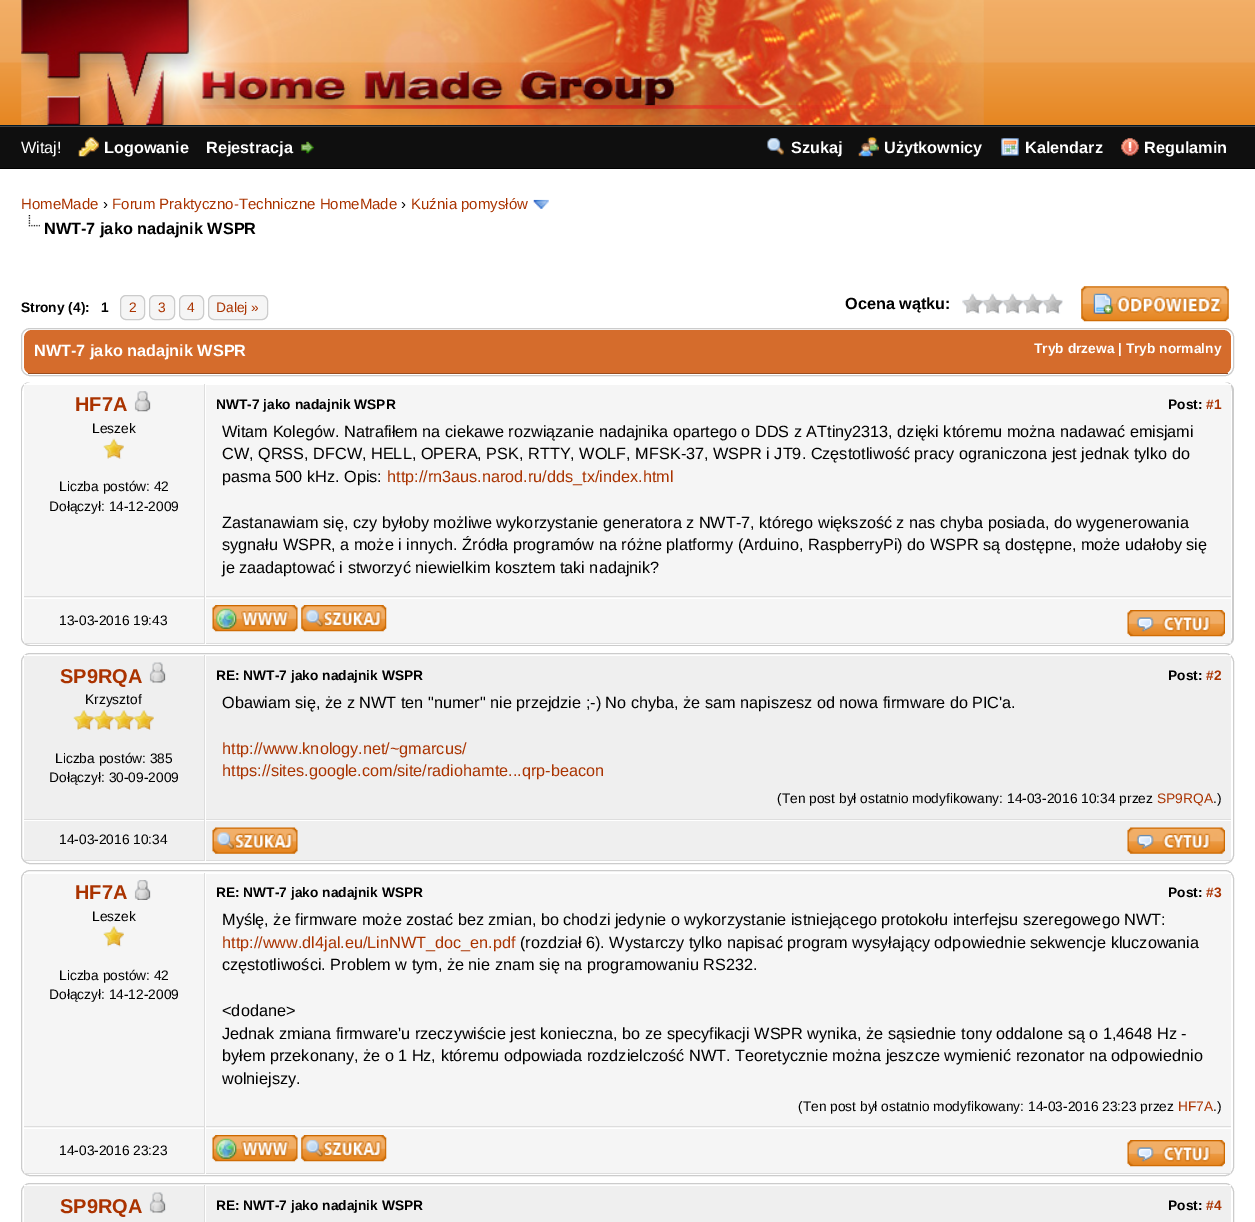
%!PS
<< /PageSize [1255 1222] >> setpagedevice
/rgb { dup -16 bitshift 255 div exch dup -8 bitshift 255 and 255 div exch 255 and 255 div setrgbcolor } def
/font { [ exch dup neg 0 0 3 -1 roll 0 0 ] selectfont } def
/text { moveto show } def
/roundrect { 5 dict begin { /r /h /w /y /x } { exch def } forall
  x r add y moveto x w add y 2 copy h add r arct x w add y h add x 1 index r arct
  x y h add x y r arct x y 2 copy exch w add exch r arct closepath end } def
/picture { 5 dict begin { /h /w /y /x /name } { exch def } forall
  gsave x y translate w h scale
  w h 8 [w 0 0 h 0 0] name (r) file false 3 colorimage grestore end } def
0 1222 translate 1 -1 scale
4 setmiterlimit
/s1 { /LiberationSans-Regular 16.25 font 16#FFFFFF rgb } def
/s2 { /LiberationSans-Bold 16.25 font 16#FFFFFF rgb } def
/s3 { /LiberationSans-Regular 15 font 16#AA3300 rgb } def
/s4 { /LiberationSans-Regular 15 font 16#000000 rgb } def
/s5 { /LiberationSans-Bold 16.25 font 16#000000 rgb } def
/s6 { /LiberationSans-Bold 13.75 font 16#000000 rgb } def
/s7 { /LiberationSans-Regular 13.75 font 16#AA3300 rgb } def
/s8 { /LiberationSans-Bold 13.75 font 16#FFFFFF rgb } def
/s9 { /LiberationSans-Bold 20 font 16#AA3300 rgb } def
/s10 { /LiberationSans-Regular 13.75 font 16#000000 rgb } def
/s11 { /LiberationSans-Bold 13.75 font 16#AA3300 rgb } def
/s12 { /LiberationSans-Regular 16.25 font 16#000000 rgb } def
/s13 { /LiberationSans-Regular 16.25 font 16#AA3300 rgb } def
16#FFFFFF rgb
0 0 1255 1222 rectfill
(pic1.raw) 0 0 1255 125 picture
16#011929 rgb
0 125 1255 1 rectfill
(pic2.raw) 21 0 963 125 picture
16#0F0F0F rgb
0 127 1255 41 rectfill
16#444444 rgb
0 126 1255 1 rectfill
16#000000 rgb
0 168 1255 1 rectfill
s1
(Witaj!) 21 153 text
(pic3.raw) 78 137 21 20 picture
s2
(Logowanie) 104 153 text
(Rejestracja) 206 153 text
(pic4.raw) 301 141 13 13 picture
(pic5.raw) 767 138 17 18 picture
(Szukaj) 791 153 text
(pic6.raw) 858 137 21 20 picture
(Użytkownicy) 884 153 text
(pic7.raw) 1001 138 18 18 picture
(Kalendarz) 1025 153 text
(pic8.raw) 1121 138 18 18 picture
(Regulamin) 1144 153 text
s3
(HomeMade) 21 209 text
s4
(›) 103 209 text
s3
(Forum Praktyczno-Techniczne HomeMade) 112 209 text
s4
(›) 401 209 text
s3
(Kuźnia pomysłów) 411 209 text
(pic9.raw) 533 199 16 10 picture
(pic10.raw) 28 215 12 12 picture
s5
(NWT-7 jako nadajnik WSPR) 44 234 text
s6
(Strony \(4\):) 21 312 text
(1) 101 312 text
16#F5F5F5 rgb
120.5 295.5 24 24 5.5 roundrect gsave fill grestore
16#CCCCCC rgb
stroke
s7
(2) 129 312 text
16#F5F5F5 rgb
149.5 295.5 25 24 5.5 roundrect gsave fill grestore
16#CCCCCC rgb
stroke
s7
(3) 158 312 text
16#F5F5F5 rgb
179.5 295.5 24 24 5.5 roundrect gsave fill grestore
16#CCCCCC rgb
stroke
s7
(4) 187 312 text
16#F5F5F5 rgb
208.5 295.5 59 24 5.5 roundrect gsave fill grestore
16#CCCCCC rgb
stroke
s7
(Dalej ») 216 312 text
s5
(Ocena wątku:) 845 309 text
(pic11.raw) 962 293 101 21 picture
(pic12.raw) 1081 286 148 36 picture
16#CCCCCC rgb
21.5 328.5 1212 47 8.5 roundrect stroke
16#D56C2C rgb
24 330 1207 44 8 roundrect fill
16#9A4E20 rgb
28 373 1200 1 rectfill
s2
(NWT-7 jako nadajnik WSPR) 34 356 text
s8
(Tryb drzewa | Tryb normalny) 1034 353 text
16#CCCCCC rgb
30 382 moveto 1225 382 lineto 1230 382 1234 386 1234 391 curveto 1234 638 lineto 1234 642 1230 646 1225 646 curveto 30 646 lineto 25 646 21 642 21 638 curveto 21 391 lineto 21 386 25 382 30 382 curveto closepath 30 382 moveto 1225 382 lineto 1229 382 1232 386 1232 391 curveto 1232 638 lineto 1232 642 1229 645 1225 645 curveto 30 645 lineto 26 645 22 642 22 638 curveto 22 391 lineto 22 386 26 382 30 382 curveto closepath eofill
16#F5F5F5 rgb
24 385 180 213 rectfill
16#FFFFFF rgb
24 384 1 1 rectfill
16#DDDDDD rgb
204 384 1 260 rectfill
24 596 181 1 rectfill
s9
(HF7A) 75 411 text
(pic13.raw) 134 391 17 21 picture
s10
(Leszek) 92 433 text
(pic14.raw) 103 438 21 21 picture
(Liczba postów: 42) 59 491 text
(Dołączył: 14-12-2009) 49 511 text
16#F5F5F5 rgb
206 385 1025 213 rectfill
16#FFFFFF rgb
1229 384 2 1 rectfill
16#DDDDDD rgb
205 596 1026 1 rectfill
16#FFFFFF rgb
205 596 1 2 rectfill
s6
(NWT-7 jako nadajnik WSPR) 216 409 text
(Post:) 1168 409 text
s11
(#1) 1206 409 text
s12
(Witam Kolegów. Natrafiłem na ciekawe rozwiązanie nadajnika opartego o DDS z ATtiny2313, dzięki któremu można nadawać emisjami) 222 437 text
(CW, QRSS, DFCW, HELL, OPERA, PSK, RTTY, WOLF, MFSK-37, WSPR i JT9. Częstotliwość pracy ograniczona jest jednak tylko do) 222 459 text
(pasma 500 kHz. Opis:) 222 482 text
s13
(http://rn3aus.narod.ru/dds_tx/index.html) 387 482 text
s12
(Zastanawiam się, czy byłoby możliwe wykorzystanie generatora z NWT-7, którego większość z nas chyba posiada, do wygenerowania) 222 528 text
(sygnału WSPR, a może i innych. Źródła programów na różne platformy \(Arduino, RaspberryPi\) do WSPR są dostępne, może udałoby się) 222 550 text
(je zaadaptować i stworzyć niewielkim kosztem taki nadajnik?) 222 573 text
16#F5F5F5 rgb
24 599 180 44 rectfill
16#DDDDDD rgb
24 643 1207 1 rectfill
s10
(13-03-2016 19:43) 59 625 text
16#F5F5F5 rgb
206 599 1025 44 rectfill
16#FFFFFF rgb
205 643 1 1 rectfill
(pic15.raw) 212 605 86 27 picture
(pic16.raw) 301 605 86 27 picture
(pic17.raw) 1127 610 98 27 picture
16#CCCCCC rgb
21.5 653.5 1212 210 8.5 roundrect stroke
16#EFEFEF rgb
24 656 180 163 rectfill
16#FFFFFF rgb
24 655 2 1 rectfill
16#DDDDDD rgb
204 655 1 206 rectfill
24 819 1207 1 rectfill
s9
(SP9RQA) 60 683 text
(pic18.raw) 149 662 17 21 picture
s10
(Krzysztof) 85 704 text
(pic19.raw) 73 710 21 20 picture
(pic20.raw) 93 710 21 20 picture
(pic20.raw) 113 710 21 20 picture
(pic20.raw) 133 710 21 20 picture
(Liczba postów: 385) 55 763 text
(Dołączył: 30-09-2009) 49 782 text
16#EFEFEF rgb
206 656 1025 163 rectfill
16#FFFFFF rgb
1229 655 2 1 rectfill
205 819 1 1 rectfill
s6
(RE: NWT-7 jako nadajnik WSPR) 216 680 text
(Post:) 1168 680 text
s11
(#2) 1206 680 text
s12
(Obawiam się, że z NWT ten "numer" nie przejdzie ;-\) No chyba, że sam napiszesz od nowa firmware do PIC'a.) 222 708 text
s13
(http://www.knology.net/~gmarcus/) 222 754 text
(https://sites.google.com/site/radiohamte...qrp-beacon) 222 776 text
s10
(\(Ten post był ostatnio modyfikowany: 14-03-2016 10:34 przez) 777 803 text
s7
(SP9RQA) 1157 803 text
s10
(.\)) 1213 803 text
16#EFEFEF rgb
24 821 180 39 rectfill
16#DDDDDD rgb
24 860 1207 1 rectfill
s10
(14-03-2016 10:34) 59 844 text
16#EFEFEF rgb
206 821 1025 39 rectfill
16#FFFFFF rgb
205 860 1 1 rectfill
(pic21.raw) 212 827 86 27 picture
(pic22.raw) 1127 827 98 27 picture
16#CCCCCC rgb
21.5 870.5 1212 305 8.5 roundrect stroke
16#F5F5F5 rgb
24 874 180 254 rectfill
16#FFFFFF rgb
24 873 1 1 rectfill
16#DDDDDD rgb
204 873 1 301 rectfill
24 1126 181 1 rectfill
s9
(HF7A) 75 899 text
(pic23.raw) 134 880 17 20 picture
s10
(Leszek) 92 921 text
(pic24.raw) 103 926 21 21 picture
(Liczba postów: 42) 59 980 text
(Dołączył: 14-12-2009) 49 999 text
16#F5F5F5 rgb
206 874 1025 254 rectfill
16#FFFFFF rgb
1230 873 1 1 rectfill
16#DDDDDD rgb
205 1126 1026 1 rectfill
16#FFFFFF rgb
205 1126 1 2 rectfill
s6
(RE: NWT-7 jako nadajnik WSPR) 216 897 text
(Post:) 1168 897 text
s11
(#3) 1206 897 text
s12
(Myślę, że firmware może zostać bez zmian, bo chodzi jedynie o wykorzystanie istniejącego protokołu interfejsu szeregowego NWT:) 222 925 text
s13
(http://www.dl4jal.eu/LinNWT_doc_en.pdf) 222 948 text
s12
(\(rozdział 6\). Wystarczy tylko napisać program wysyłający odpowiednie sekwencje kluczowania) 520 948 text
(częstotliwości. Problem w tym, że nie znam się na programowaniu RS232.) 222 970 text
(<dodane>) 222 1016 text
(Jednak zmiana firmware'u rzeczywiście jest konieczna, bo ze specyfikacji WSPR wynika, że sąsiednie tony oddalone są o 1,4648 Hz -) 222 1039 text
(byłem przekonany, że o 1 Hz, któremu odpowiada rozdzielczość NWT. Teoretycznie można jeszcze wymienić rezonator na odpowiednio) 222 1061 text
(wolniejszy.) 222 1084 text
s10
(\(Ten post był ostatnio modyfikowany: 14-03-2016 23:23 przez) 798 1111 text
s7
(HF7A) 1178 1111 text
s10
(.\)) 1213 1111 text
16#F5F5F5 rgb
24 1129 180 44 rectfill
16#DDDDDD rgb
24 1173 1207 1 rectfill
s10
(14-03-2016 23:23) 59 1155 text
16#F5F5F5 rgb
206 1129 1025 44 rectfill
16#FFFFFF rgb
205 1173 1 1 rectfill
(pic15.raw) 212 1135 86 27 picture
(pic16.raw) 301 1135 86 27 picture
(pic17.raw) 1127 1140 98 27 picture
16#CCCCCC rgb
21.5 1183.5 1212 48 8.5 roundrect stroke
16#EFEFEF rgb
24 1186 180 36 rectfill
16#FFFFFF rgb
24 1185 2 1 rectfill
16#DDDDDD rgb
204 1185 1 37 rectfill
s9
(SP9RQA) 60 1213 text
(pic18.raw) 149 1192 17 21 picture
16#EFEFEF rgb
206 1186 1025 36 rectfill
16#FFFFFF rgb
1229 1185 2 1 rectfill
s6
(RE: NWT-7 jako nadajnik WSPR) 216 1210 text
(Post:) 1168 1210 text
s11
(#4) 1206 1210 text
showpage
